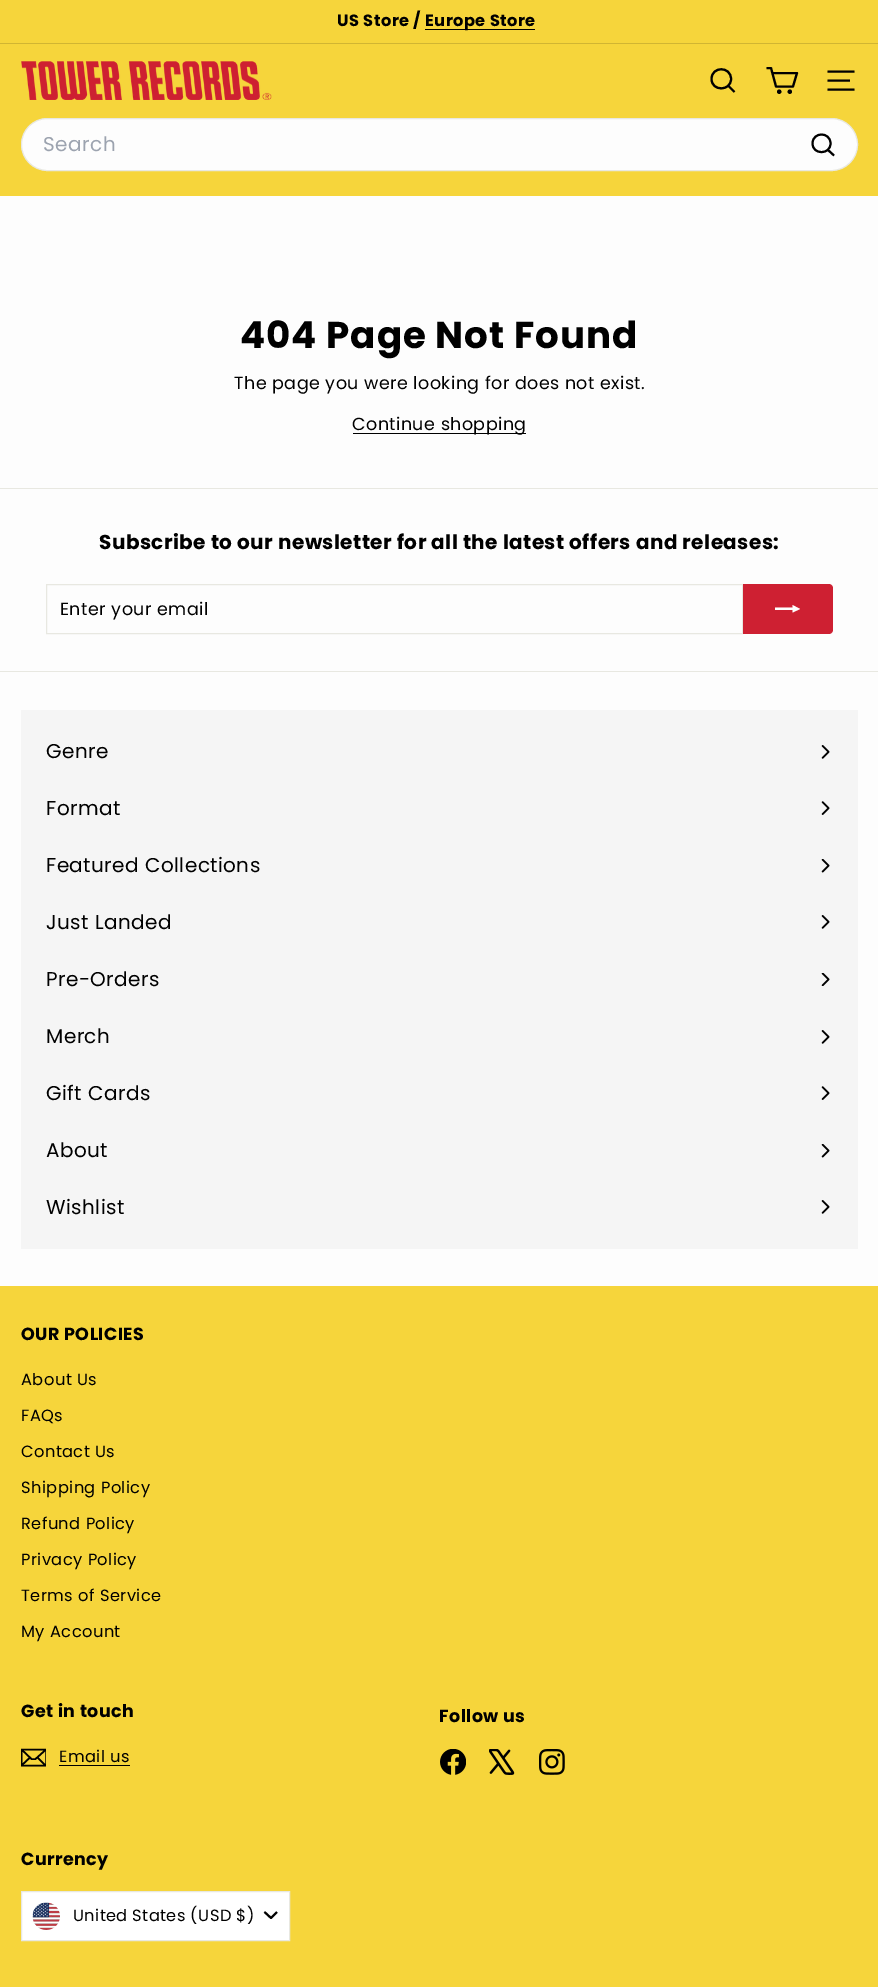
%!PS
<< /PageSize [878 1987] /PageUsesTransparency true >> setpagedevice
/rgb { dup -16 bitshift 255 div exch dup -8 bitshift 255 and 255 div exch 255 and 255 div setrgbcolor } def
/font { [ exch dup neg 0 0 3 -1 roll 0 0 ] selectfont } def
/alpha { dup .setfillconstantalpha .setstrokeconstantalpha } def
/circle { newpath 0 360 arc closepath } def
/roundrect { 5 dict begin { /r /h /w /y /x } { exch def } forall
  x r add y moveto x w add y 2 copy h add r arct x w add y h add x 1 index r arct
  x y h add x y r arct x y 2 copy exch w add exch r arct closepath end } def
/picture { 5 dict begin { /h /w /y /x /name } { exch def } forall
  gsave x y translate w h scale
  w h 8 [w 0 0 h 0 0] name (r) file false 3 colorimage grestore end } def
0 .pushpdf14devicefilter
0 1987 translate 1 -1 scale
4 setmiterlimit
16#FDFDFD rgb
0 0 878 1987 rectfill
16#F6D53B rgb
0 0 878 43 rectfill
/Poppins-Bold 16.25 font
16#000000 rgb
337 26 moveto 0.45 0 (US Store /) ashow
425 29 110 1 rectfill
425 26 moveto 0.45 0 (Europe Store) ashow
16#D1B532 rgb
0 43 878 1 rectfill
16#F6D53B rgb
0 44 878 152 rectfill
(pic1.raw) 21 61 251 39 picture
16#000000 rgb
2.1 setlinewidth
1 setlinejoin
731 79 moveto 731 91.5 711.5 91.5 711.5 79 curveto 711.5 66 731 66 731 79 curveto 734.5 92 moveto 728.5 86 lineto stroke
772.5 73 moveto 797 73 lineto 793 86.5 lineto 776 86.5 lineto 771 68 lineto 766.5 68 lineto stroke
0 setlinejoin
779.2 91.7 1.1 circle stroke
789.8 91.7 1.1 circle stroke
1 setlinejoin
827.5 71.5 moveto 854.5 71.5 lineto 827.5 80.5 moveto 850 80.5 lineto 827.5 89.5 moveto 854.5 89.5 lineto stroke
16#FDFDFD rgb
21.5 118.5 836 52 26 roundrect gsave fill grestore
16#E8E8E1 rgb
1 setlinewidth
0 setlinejoin
stroke
/Poppins-Regular 20 font
16#9CA3AF rgb
43 151 moveto 0.5 0 (Search) ashow
16#000000 rgb
2 setlinewidth
1 setlinejoin
830.5 143.5 moveto 830.5 155 812.5 155 812.5 143.5 curveto 812.5 131.5 830.5 131.5 830.5 143.5 curveto 834 155.5 moveto 828 150 lineto stroke
/Poppins-Bold 37.25 font
240 348 moveto 0.9 0 (404 Page Not Found) ashow
/Poppins-Regular 17.5 font
234 389 moveto 0.45 0 (The page you were looking for does not exist.) ashow
353 433 173 1 rectfill
352 430 moveto 0.45 0 (Continue shopping) ashow
16#E8E8E1 rgb
0 488 878 1 rectfill
/Poppins-Bold 20 font
16#000000 rgb
99 549 moveto 0.45 0 (Subscribe to our newsletter for all the latest offers and releases:) ashow
16#E8E8E1 rgb
1 setlinewidth
0 setlinejoin
46.5 584.5 696 49 rectstroke
/Poppins-Regular 17.5 font
16#000000 rgb
60 615 moveto 0.45 0 (Enter your email) ashow
16#CE2032 rgb
743 584 moveto 829 584 lineto 831 584 833 586 833 588 curveto 833 630 lineto 833 632 831 634 829 634 curveto 743 634 lineto closepath fill
16#FFFFFF rgb
775 610 moveto 775 607.5 lineto 792.5 607.5 lineto 792.5 605 lineto 800 609 lineto 792.5 612.5 lineto 792.5 610 lineto closepath fill
16#E8E8E1 rgb
0 671 878 1 rectfill
(pic2.raw) 821 745 9 14 picture
(pic3.raw) 821 801 9 14 picture
(pic4.raw) 821 859 9 14 picture
(pic2.raw) 821 915 9 14 picture
(pic5.raw) 821 973 9 13 picture
(pic2.raw) 821 1030 9 14 picture
(pic3.raw) 821 1086 9 14 picture
(pic4.raw) 821 1144 9 14 picture
(pic2.raw) 821 1200 9 14 picture
0.03 alpha
16#000000 rgb
21 710 837 539 rectfill
/Poppins-Regular 20 font
1 alpha
46 758 moveto 0.45 0 (Genre) ashow
46 815 moveto 0.45 0 (Format) ashow
46 872 moveto 0.45 0 (Featured Collections) ashow
46 929 moveto 0.45 0 (Just Landed) ashow
46 986 moveto 0.45 0 (Pre-Orders) ashow
46 1043 moveto 0.45 0 (Merch) ashow
46 1100 moveto 0.45 0 (Gift Cards) ashow
46 1157 moveto 0.45 0 (About) ashow
46 1214 moveto 0.45 0 (Wishlist) ashow
16#F6D53B rgb
0 1286 878 701 rectfill
/Poppins-Bold 17.5 font
16#000000 rgb
21 1340 moveto 0.45 0 (OUR POLICIES) ashow
/Poppins-Regular 16.25 font
21 1385 moveto 0.45 0 (About Us) ashow
21 1421 moveto 0.45 0 (FAQs) ashow
21 1457 moveto 0.45 0 (Contact Us) ashow
21 1493 moveto 0.45 0 (Shipping Policy) ashow
21 1529 moveto 0.45 0 (Refund Policy) ashow
21 1565 moveto 0.45 0 (Privacy Policy) ashow
21 1601 moveto 0.45 0 (Terms of Service) ashow
21 1637 moveto 0.45 0 (My Account) ashow
/Poppins-Bold 17.5 font
21 1717 moveto 0.45 0 (Get in touch) ashow
gsave
21 1745 25 25 rectclip
1.6 setlinewidth
1 setlinejoin
46 1765.5 moveto 21.5 1765.5 lineto 21.5 1749.5 lineto 46 1749.5 lineto closepath 21.5 1749.5 moveto 31.5 1759 lineto 35.5 1759 lineto 46 1749.5 lineto 30 1757.5 moveto 22 1765 lineto 45.5 1765.5 moveto 37.5 1757.5 lineto stroke
grestore
/Poppins-Regular 16.25 font
59 1762 moveto 0.45 0 (Email us) ashow
59 1765 71 1 rectfill
/Poppins-Bold 17.5 font
439 1722 moveto 0.45 0 (Follow us) ashow
(pic6.raw) 440 1749 26 26 picture
(pic7.raw) 489 1749 26 26 picture
(pic8.raw) 539 1749 26 26 picture
21 1865 moveto 0.45 0 (Currency) ashow
16#FFFFFF rgb
21.5 1891.5 moveto 289.5 1891.5 lineto 289.5 1940.5 lineto 21.5 1940.5 lineto closepath gsave fill grestore
16#E8E8E1 rgb
stroke
(pic9.raw) 32 1902 28 28 picture
/Poppins-Regular 16.25 font
16#000000 rgb
73 1921 moveto 0.4 0 (United States \(USD $\)) ashow
2 setlinewidth
1 setlinejoin
264.5 1912 moveto 271 1918 lineto 277 1912 lineto stroke
.poppdf14devicefilter showpage
